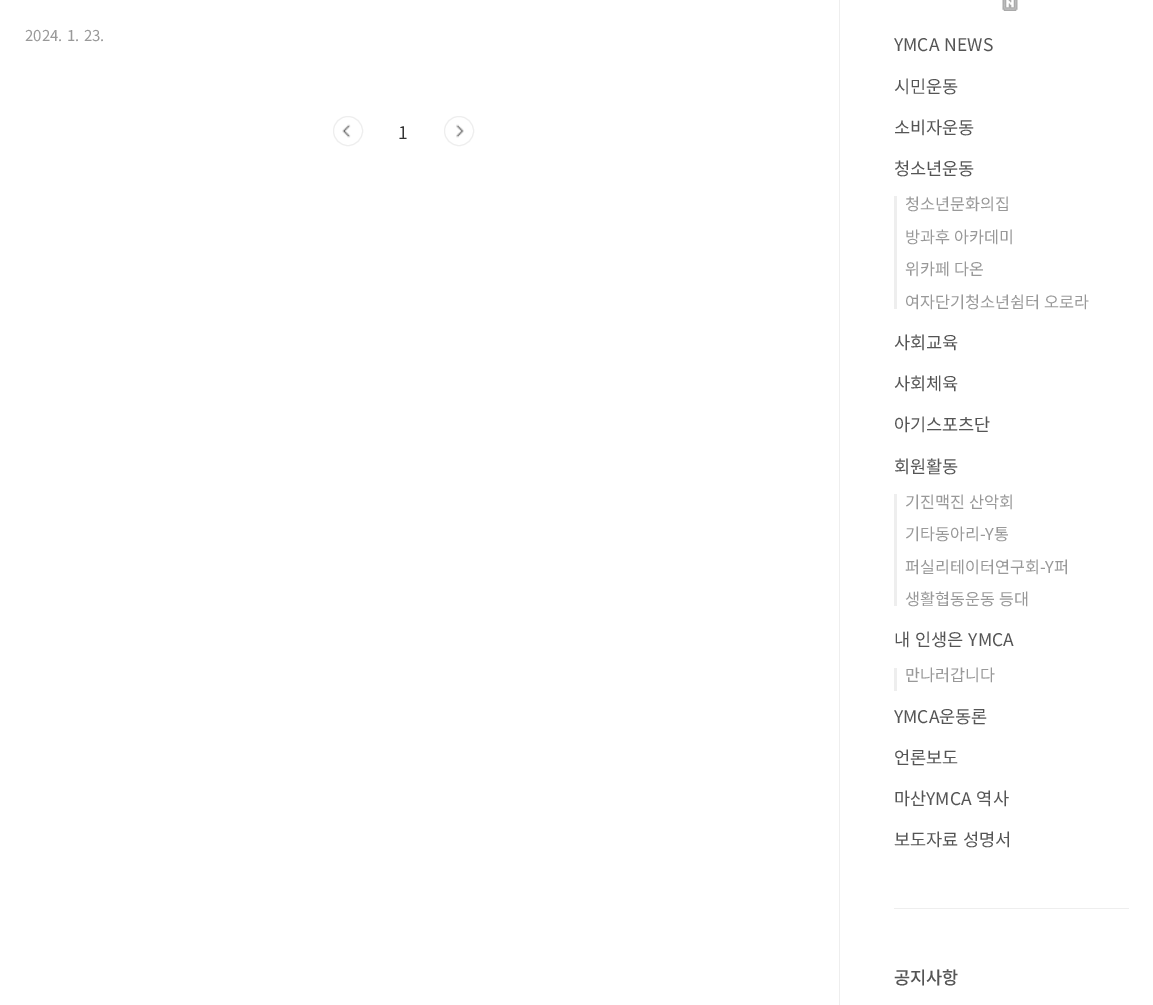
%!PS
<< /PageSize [1153 1005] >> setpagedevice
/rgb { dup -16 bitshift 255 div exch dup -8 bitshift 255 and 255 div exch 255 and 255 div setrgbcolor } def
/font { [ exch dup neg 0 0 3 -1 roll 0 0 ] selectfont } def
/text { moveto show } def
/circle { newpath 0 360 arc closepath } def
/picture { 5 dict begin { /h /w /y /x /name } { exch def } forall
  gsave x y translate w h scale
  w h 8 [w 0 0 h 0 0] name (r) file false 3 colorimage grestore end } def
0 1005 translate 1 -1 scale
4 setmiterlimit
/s1 { /NotoSansKR-Regular 17.5 font 16#333333 rgb } def
/s2 { /NotoSansKR-Regular 17.5 font 16#555555 rgb } def
/s3 { /NotoSansKR-Regular 16.25 font 16#999999 rgb } def
/s4 { /NotoSansKR-Medium 17.5 font 16#555555 rgb } def
16#FFFFFF rgb
0 0 1153 1005 rectfill
/NotoSansKR-Regular 15 font
16#999999 rgb
25 41 moveto 1 0 32 (2024. 1. 23.) widthshow
(pic1.raw) 342 124 9 14 picture
16#EEEEEE rgb
348 131 14.5 circle stroke
s1
(1) 398 139 text
(pic2.raw) 456 124 8 14 picture
16#EEEEEE rgb
459 131 14.5 circle stroke
839 0 1 1005 rectfill
(pic3.raw) 1002 0 16 11 picture
16#555555 rgb
894 51 moveto 1 0 32 (YMCA NEWS) widthshow
(시민운동) 894 93 text
(소비자운동) 894 134 text
(청소년운동) 894 175 text
16#EEEEEE rgb
894 196 3 113 rectfill
s3
(청소년문화의집) 905 210 text
905 243 moveto 1 0 32 (방과후 아카데미) widthshow
905 275 moveto 1 0 32 (위카페 다온) widthshow
905 308 moveto 1 0 32 (여자단기청소년쉼터 오로라) widthshow
s2
(사회교육) 894 349 text
(사회체육) 894 390 text
(아기스포츠단) 894 431 text
(회원활동) 894 473 text
16#EEEEEE rgb
894 494 3 112 rectfill
/NotoSansKR-Regular 16.25 font
16#999999 rgb
905 508 moveto 1 0 32 (기진맥진 산악회) widthshow
(기타동아리-Y통) 905 540 text
(퍼실리테이터연구회-Y퍼) 905 573 text
905 605 moveto 1 0 32 (생활협동운동 등대) widthshow
/NotoSansKR-Regular 17.5 font
16#555555 rgb
894 646 moveto 1 0 32 (내 인생은 YMCA) widthshow
16#EEEEEE rgb
894 668 3 23 rectfill
s3
(만나러갑니다) 905 681 text
s2
(YMCA운동론) 894 723 text
(언론보도) 894 764 text
894 805 moveto 1 0 32 (마산YMCA 역사) widthshow
(보도자료) 894 846 text
(성명서) 963 846 text
16#EEEEEE rgb
894 908 235 1 rectfill
s4
(공지사항) 894 984 text
showpage
